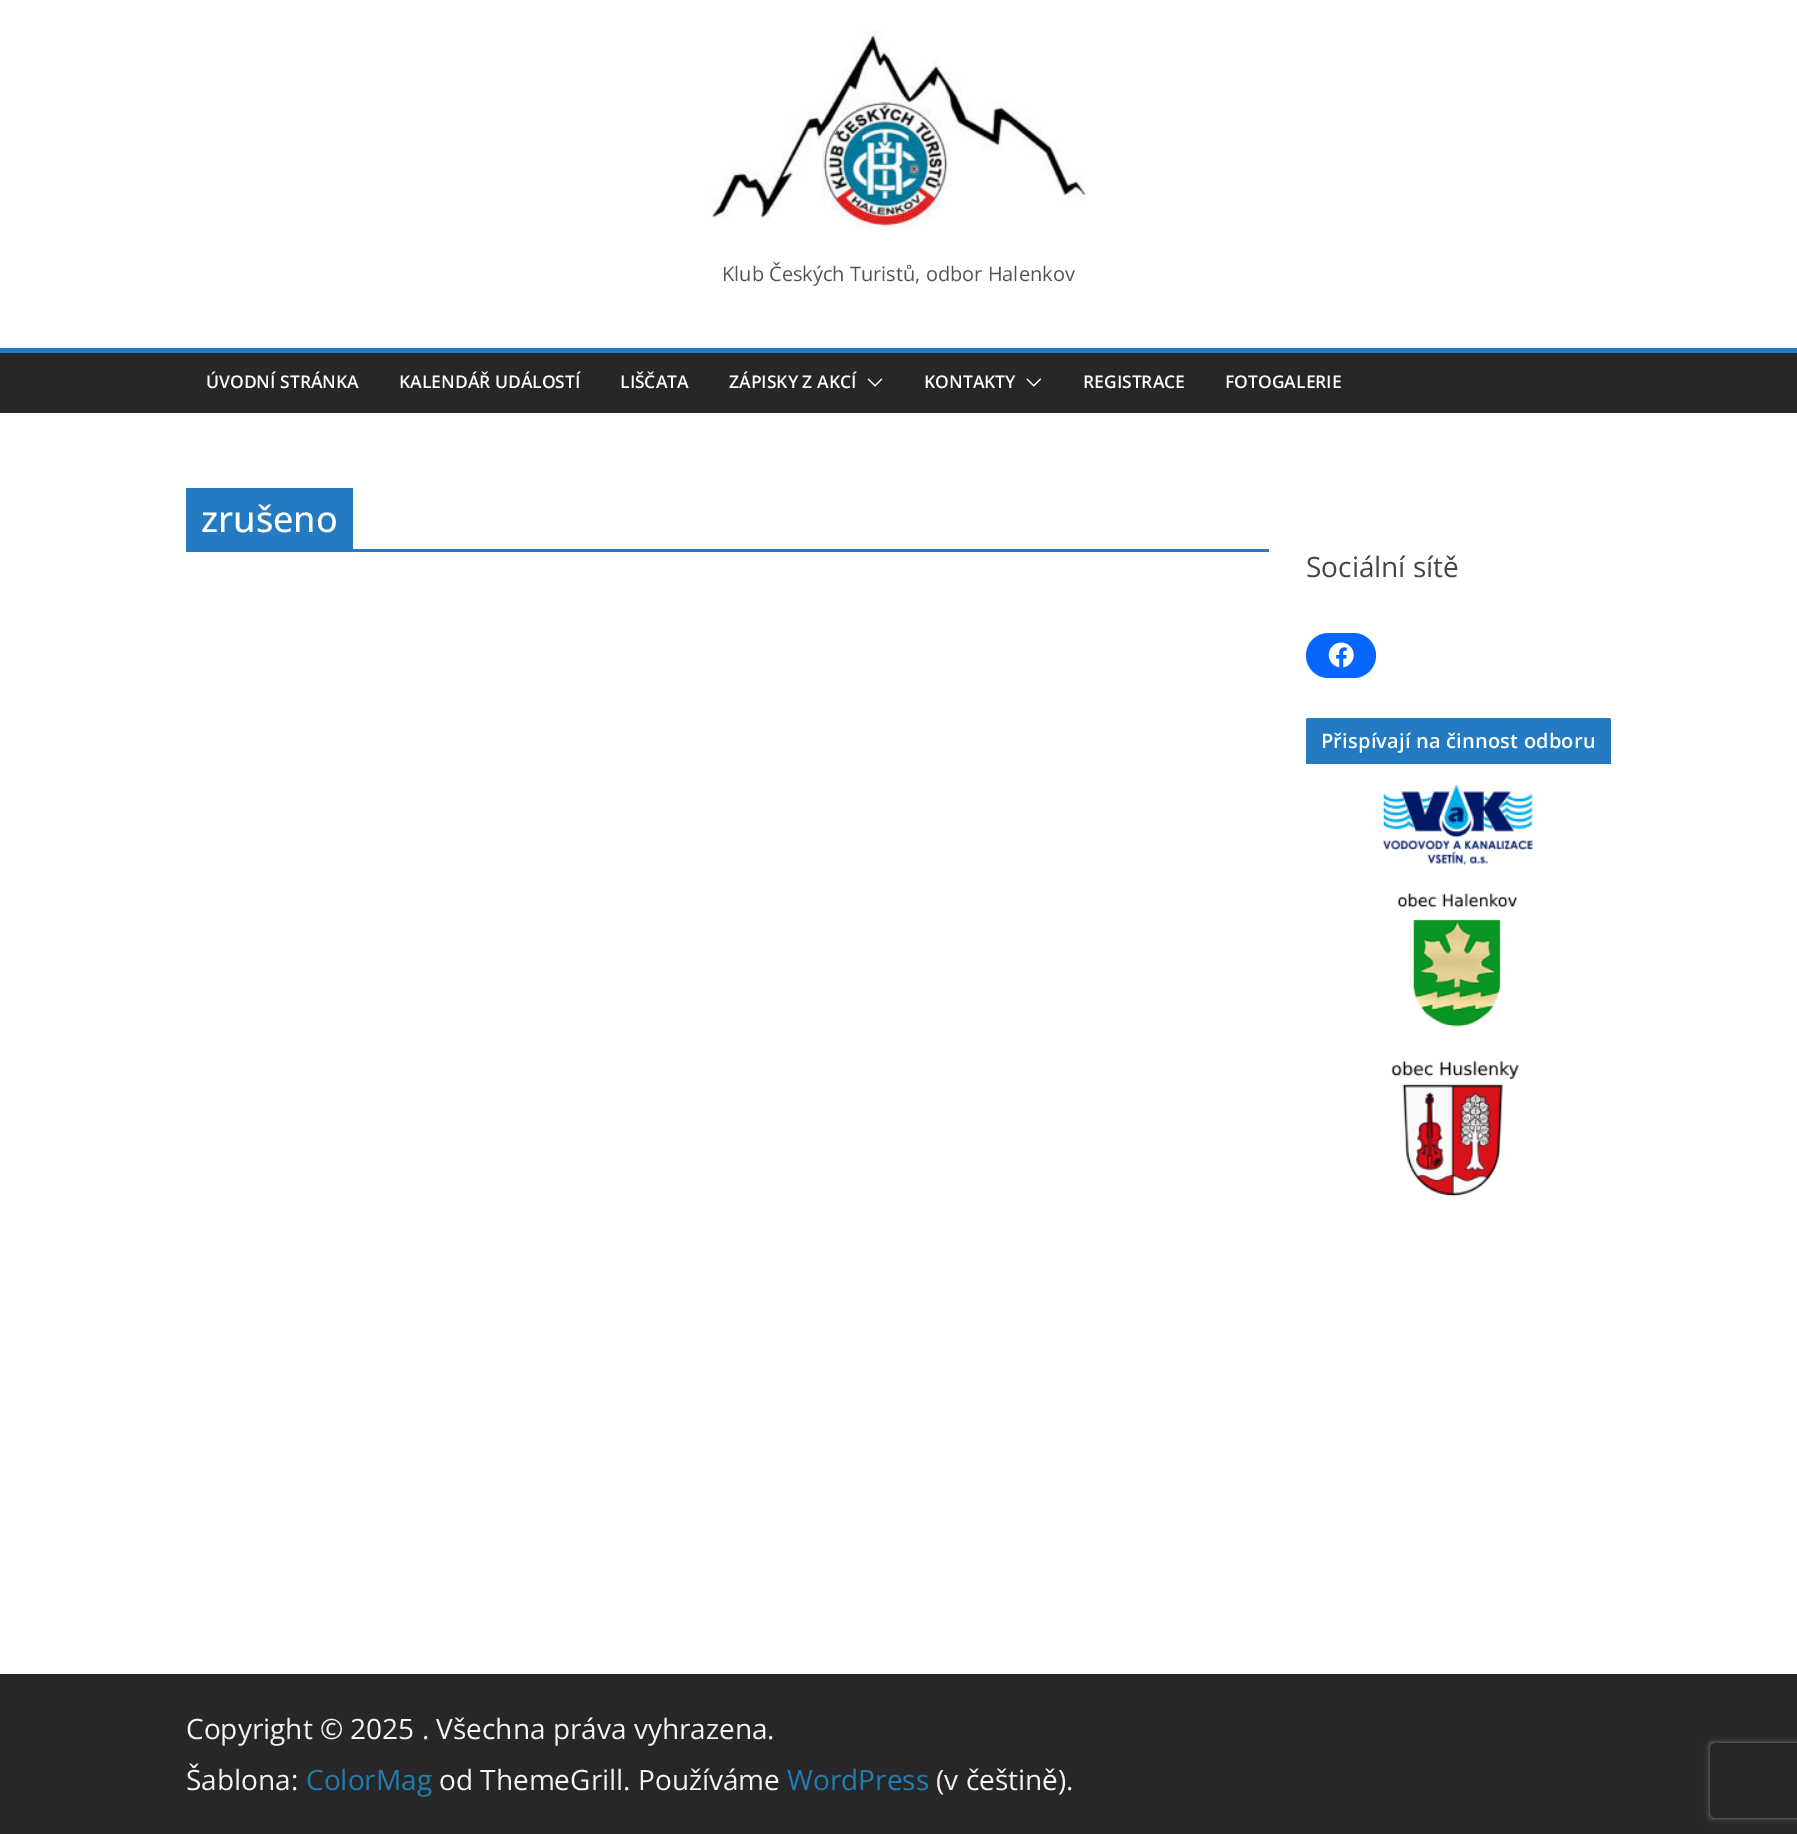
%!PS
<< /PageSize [1797 1834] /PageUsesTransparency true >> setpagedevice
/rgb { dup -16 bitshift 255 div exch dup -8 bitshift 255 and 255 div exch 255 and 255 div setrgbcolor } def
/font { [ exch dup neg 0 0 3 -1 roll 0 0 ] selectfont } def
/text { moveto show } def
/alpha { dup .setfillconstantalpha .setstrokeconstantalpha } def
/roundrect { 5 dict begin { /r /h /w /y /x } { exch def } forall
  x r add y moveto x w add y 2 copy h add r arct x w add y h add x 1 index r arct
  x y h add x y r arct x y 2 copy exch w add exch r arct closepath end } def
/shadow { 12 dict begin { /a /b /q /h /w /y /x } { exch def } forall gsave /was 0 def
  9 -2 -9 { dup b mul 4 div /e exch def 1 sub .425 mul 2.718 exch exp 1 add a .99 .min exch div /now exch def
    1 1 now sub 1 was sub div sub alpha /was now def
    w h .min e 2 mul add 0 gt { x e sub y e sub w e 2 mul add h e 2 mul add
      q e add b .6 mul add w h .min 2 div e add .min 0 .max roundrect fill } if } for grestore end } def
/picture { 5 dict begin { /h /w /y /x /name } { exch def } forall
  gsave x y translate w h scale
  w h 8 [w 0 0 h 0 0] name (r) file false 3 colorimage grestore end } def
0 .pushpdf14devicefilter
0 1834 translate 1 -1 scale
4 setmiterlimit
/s1 { /OpenSans-Regular 20 font 16#52525B rgb } def
/s2 { /OpenSans-SemiBold 17.5 font 16#FFFFFF rgb } def
/s3 { /OpenSans-Medium 36 font 16#FFFFFF rgb } def
/s4 { /OpenSans-Regular 28 font 16#444444 rgb } def
/s5 { /OpenSans-Regular 28 font 16#F4F4F5 rgb } def
/s6 { /OpenSans-Regular 28 font 16#207DAF rgb } def
16#FFFFFF rgb
0 0 1797 1834 rectfill
(pic1.raw) 711 30 375 200 picture
s1
(Klub Českých Turistů, odbor Halenkov) 722 281 text
16#27272A rgb
0 353 1797 60 rectfill
16#257BC1 rgb
0 348 1797 5 rectfill
s2
(ÚVODNÍ STRÁNKA) 206 388 text
(KALENDÁŘ UDÁLOSTÍ) 399 388 text
(LIŠČATA) 620 388 text
(ZÁPISKY Z AKCÍ) 729 388 text
(pic2.raw) 867 378 16 9 picture
(KONTAKTY) 924 388 text
(pic3.raw) 1026 378 15 9 picture
(REGISTRACE) 1083 388 text
(FOTOGALERIE) 1225 388 text
16#257BC1 rgb
186 549 1083 3 rectfill
186 488 167 61 rectfill
s3
(zrušeno) 201 532 text
s4
(Sociální sítě) 1306 577 text
16#0866FF rgb
1306 633 70 45 22.5 roundrect fill
(pic4.raw) 1328 642 26 26 picture
16#257BC1 rgb
1306 761 305 3 rectfill
1308.5 718 moveto 1608.5 718 lineto 1610 718 1611 719 1611 720.5 curveto 1611 761 lineto 1306 761 lineto 1306 720.5 lineto 1306 719 1307 718 1308.5 718 curveto closepath fill
/OpenSans-SemiBold 20 font
16#FFFFFF rgb
1321 748 moveto 0.2 0 (Přispívají na činnost odboru) ashow
(pic5.raw) 1382 784 151 82 picture
(pic6.raw) 1397 893 121 134 picture
(pic7.raw) 1391 1061 128 136 picture
16#27272A rgb
0 1674 1797 160 rectfill
s5
(Copyright © 2025 . Všechna práva vyhrazena.) 186 1739 text
(Šablona:) 186 1790 text
s6
(ColorMag) 306 1790 text
s5
(od ThemeGrill. Používáme) 439 1790 text
s6
(WordPress) 787 1790 text
s5
(\(v češtině\).) 936 1790 text
gsave
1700 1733 moveto 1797 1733 lineto 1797 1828 lineto 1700 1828 lineto closepath 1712.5 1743 moveto 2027.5 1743 lineto 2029 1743 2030 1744 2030 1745.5 curveto 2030 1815.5 lineto 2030 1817 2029 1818 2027.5 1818 curveto 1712.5 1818 lineto 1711 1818 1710 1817 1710 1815.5 curveto 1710 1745.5 lineto 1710 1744 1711 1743 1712.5 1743 curveto closepath eoclip newpath
16#808080 rgb
1710 1743 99 75 2.5 3 1 shadow
grestore
.poppdf14devicefilter showpage
